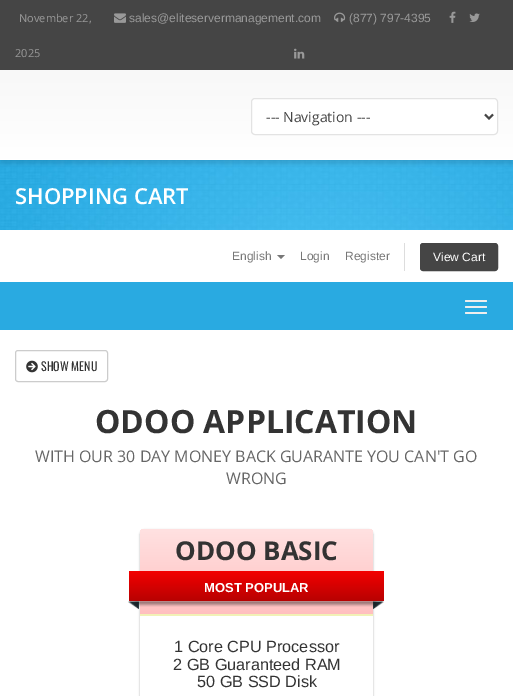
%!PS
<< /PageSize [513 696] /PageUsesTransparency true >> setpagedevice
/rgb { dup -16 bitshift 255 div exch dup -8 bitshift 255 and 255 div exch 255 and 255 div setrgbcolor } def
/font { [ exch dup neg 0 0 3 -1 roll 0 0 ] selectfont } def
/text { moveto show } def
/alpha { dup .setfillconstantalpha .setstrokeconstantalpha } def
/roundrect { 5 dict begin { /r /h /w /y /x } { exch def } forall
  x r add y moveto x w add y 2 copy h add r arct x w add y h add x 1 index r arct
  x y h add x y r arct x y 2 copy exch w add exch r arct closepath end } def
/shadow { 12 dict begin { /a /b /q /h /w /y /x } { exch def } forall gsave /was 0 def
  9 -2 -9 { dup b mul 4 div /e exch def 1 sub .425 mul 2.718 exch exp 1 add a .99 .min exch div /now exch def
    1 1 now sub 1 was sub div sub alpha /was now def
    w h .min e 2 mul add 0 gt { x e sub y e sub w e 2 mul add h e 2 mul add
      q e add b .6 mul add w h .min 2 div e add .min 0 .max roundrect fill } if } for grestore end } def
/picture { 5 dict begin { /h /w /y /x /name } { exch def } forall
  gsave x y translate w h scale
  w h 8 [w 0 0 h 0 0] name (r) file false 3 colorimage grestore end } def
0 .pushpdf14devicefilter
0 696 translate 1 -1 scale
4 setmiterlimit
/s1 { /OpenSans-Regular 11 font 16#999999 rgb } def
/s2 { /LiberationSans-Regular 12 font 16#999999 rgb } def
/s3 { /OpenSans-Regular 14 font 16#454545 rgb } def
/s4 { /OpenSans-SemiBold 22 font 16#FFFFFF rgb } def
/s5 { /LiberationSans-Regular 12 font 16#777777 rgb } def
/s6 { /LiberationSans-Regular 12 font 16#FFFFFF rgb } def
/s7 { /Oswald-Regular 12 font 16#333333 rgb } def
/s8 { /OpenSans-Bold 32 font 16#333333 rgb } def
/s9 { /OpenSans-Regular 16 font 16#666666 rgb } def
/s10 { /OpenSans-Bold 26 font 16#333333 rgb } def
/s11 { /LiberationSans-Bold 13 font 16#FFFFFF rgb } def
/s12 { /LiberationSans-Regular 16.25 font 16#333333 rgb } def
16#FFFFFF rgb
0 0 513 696 rectfill
16#454545 rgb
0 0 513 70 rectfill
s1
(November 22,) 19 22 text
(2025) 15 57 text
(pic1.raw) 114 13 12 10 picture
s2
(sales@eliteservermanagement.com) 129 22 text
(pic2.raw) 334 12 12 10 picture
(\(877\) 797-4395) 349 22 text
(pic3.raw) 449 11 7 12 picture
(pic4.raw) 469 13 11 9 picture
(pic5.raw) 294 48 11 11 picture
(pic6.raw) 0 160 513 70 picture
16#000000 rgb
0 74 513 90 0 1.5 0.1 shadow
gsave 0 70 moveto 513 70 lineto 513 160 lineto 0 160 lineto closepath clip newpath
<< /ShadingType 2 /ColorSpace /DeviceRGB /Coords [257 70 257 160] /Extend [true true] /Function << /FunctionType 2 /Domain [0 1] /C0 [0.973 0.973 0.973] /C1 [1 1 1] /N 1 >> >> shfill grestore
16#FFFFFF rgb
251.5 98.5 246 36 3.5 roundrect gsave fill grestore
16#E3E3E3 rgb
stroke
16#454545 rgb
2 setlinewidth
485 114.5 moveto 489 118.5 lineto 493 114.5 lineto stroke
s3
(--- Navigation ---) 266 122 text
s4
(SHOPPING CART) 15 204 text
s5
(English) 232 260 text
277 255 moveto 285 255 lineto 281 259 lineto closepath fill
(Login) 300 260 text
(Register) 345 260 text
16#DDDDDD rgb
404 243 1 28 rectfill
16#454545 rgb
420.5 243.5 77 27 2.5 roundrect gsave fill grestore
1 setlinewidth
stroke
s6
(View Cart) 433 261 text
16#29AAE1 rgb
0 282 513 48 rectfill
16#EEEEEE rgb
465 300 22 2 1 roundrect fill
465 306 22 2 1 roundrect fill
465 312 22 2 1 roundrect fill
16#CCCCCC rgb
15.5 350.5 92 31 2.5 roundrect stroke
(pic7.raw) 26 360 12 13 picture
s7
(SHOW MENU) 41 371 text
s8
(ODOO APPLICATION) 95 433 text
s9
(WITH OUR 30 DAY MONEY BACK GUARANTE YOU CAN'T GO) 35 462 text
(WRONG) 226 484 text
16#000000 rgb
140 530 233 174 5 1 0.3 shadow
16#FFFFFF rgb
140 529 233 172 5 roundrect fill
gsave 145 529 moveto 368 529 lineto 371 529 373 531 373 534 curveto 373 616 lineto 140 616 lineto 140 534 lineto 140 531 142 529 145 529 curveto closepath clip newpath
<< /ShadingType 2 /ColorSpace /DeviceRGB /Coords [257 529 257 616] /Extend [true true] /Function << /FunctionType 2 /Domain [0 1] /C0 [1 0.882 0.882] /C1 [1 0.749 0.749] /N 1 >> >> shfill grestore
16#F1F1B6 rgb
140 614 233 2 rectfill
s10
(ODOO BASIC) 175 560 text
(pic8.raw) 128 601 256 9 picture
16#000000 rgb
135 590 241 15 0 1 0.18 shadow
gsave 129 571 moveto 384 571 lineto 384 601 lineto 129 601 lineto closepath clip newpath
<< /ShadingType 2 /ColorSpace /DeviceRGB /Coords [257 571 257 601] /Extend [true true] /Function << /FunctionType 2 /Domain [0 1] /C0 [0.953 0 0] /C1 [0.718 0.008 0.008] /N 1 >> >> shfill grestore
s11
(MOST POPULAR) 204 592 text
s12
(1 Core CPU Processor) 174 652 text
(2 GB Guaranteed RAM) 173 670 text
(50 GB SSD Disk) 197 687 text
.poppdf14devicefilter showpage
